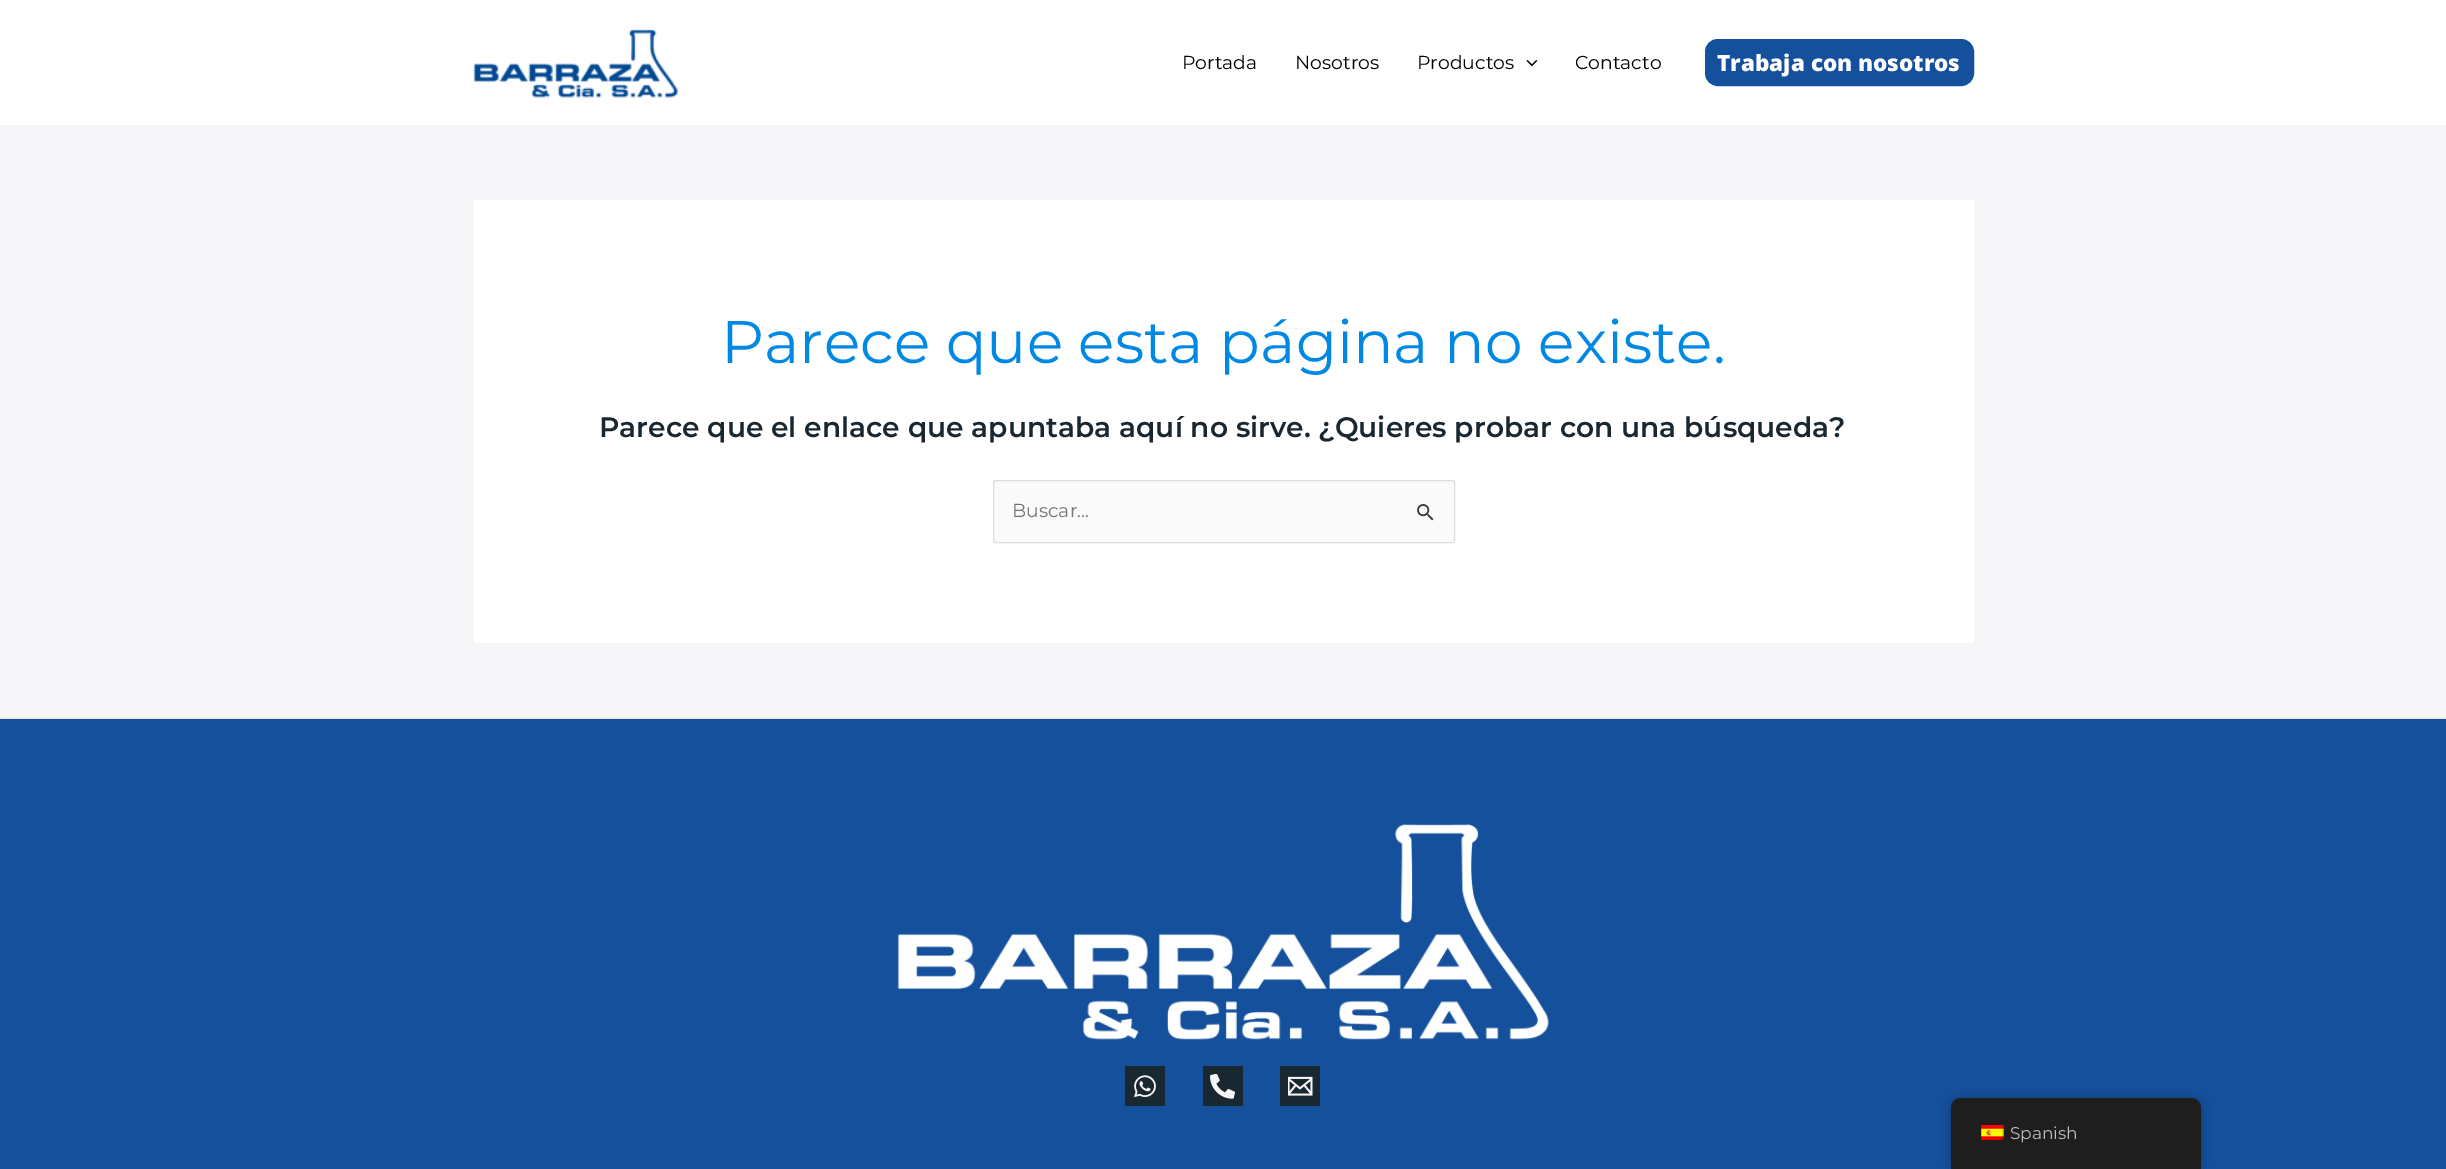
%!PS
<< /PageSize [2446 1169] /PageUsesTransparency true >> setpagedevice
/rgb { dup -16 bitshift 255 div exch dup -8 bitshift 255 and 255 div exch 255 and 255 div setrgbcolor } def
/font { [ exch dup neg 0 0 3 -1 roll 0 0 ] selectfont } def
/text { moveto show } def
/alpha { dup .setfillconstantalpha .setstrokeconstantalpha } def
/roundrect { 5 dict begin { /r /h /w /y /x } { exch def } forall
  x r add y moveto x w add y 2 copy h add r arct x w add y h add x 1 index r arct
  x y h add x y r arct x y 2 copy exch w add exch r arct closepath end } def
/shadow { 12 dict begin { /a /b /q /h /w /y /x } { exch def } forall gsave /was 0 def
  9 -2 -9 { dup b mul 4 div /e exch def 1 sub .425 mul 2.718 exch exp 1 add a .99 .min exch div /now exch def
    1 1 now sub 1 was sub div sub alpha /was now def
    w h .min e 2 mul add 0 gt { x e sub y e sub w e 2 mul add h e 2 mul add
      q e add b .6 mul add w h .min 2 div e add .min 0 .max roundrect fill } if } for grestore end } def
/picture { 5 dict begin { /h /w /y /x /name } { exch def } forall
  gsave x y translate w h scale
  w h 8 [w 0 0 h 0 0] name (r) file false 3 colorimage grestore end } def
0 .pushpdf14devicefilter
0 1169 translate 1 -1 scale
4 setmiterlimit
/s1 { /Montserrat-Regular 18.75 font 16#000000 rgb } def
/s2 { /OpenSans-ExtraBold 22.5 font 16#FFFFFF rgb } def
/s3 { /Montserrat-Regular 60 font 16#0089E4 rgb } def
/s4 { /Montserrat-SemiBold 28.1 font 16#192730 rgb } def
/s5 { /Montserrat-Regular 18.75 font 16#757575 rgb } def
/s6 { /Montserrat-Regular 17 font 16#BDBDBD rgb } def
16#F6F6F8 rgb
0 0 2446 1169 rectfill
16#FFFFFF rgb
0 0 2446 125 rectfill
(pic1.raw) 473 29 206 69 picture
s1
(Portada) 1182 69 text
(Nosotros) 1295 69 text
(Productos) 1417 69 text
(pic2.raw) 1526 60 12 7 picture
(Contacto) 1575 69 text
16#14509C rgb
1711.5 45.5 256 34 6.5 roundrect gsave fill grestore
13 setlinewidth
stroke
s2
(Trabaja con nosotros) 1717 71 text
474 200 1500 443 rectfill
s3
(Parece que esta página no existe.) 721 363 text
s4
(Parece que el enlace que apuntaba aquí no sirve. ¿Quieres probar con una búsqueda?) 599 437 text
16#FAFAFA rgb
993.5 480.5 461 62 2 roundrect gsave fill grestore
16#DDDDDD rgb
1 setlinewidth
stroke
s5
(Buscar...) 1012 517 text
(pic3.raw) 1417 504 17 17 picture
16#14509C rgb
0 719 2446 450 rectfill
16#E6E6E6 rgb
0 718 2446 1 rectfill
(pic4.raw) 897 824 652 216 picture
16#192730 rgb
1125 1066 40 40 rectfill
(pic5.raw) 1134 1075 22 23 picture
1203 1066 40 40 rectfill
(pic6.raw) 1210 1074 25 25 picture
1280 1066 40 40 rectfill
(pic7.raw) 1288 1076 25 20 picture
16#000000 rgb
1951 1098 250 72 10 5 0.25 shadow
16#1E1E1E rgb
1961 1098 moveto 2191 1098 lineto 2196.5 1098 2201 1102.5 2201 1108 curveto 2201 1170 lineto 1951 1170 lineto 1951 1108 lineto 1951 1102.5 1955.5 1098 1961 1098 curveto closepath fill
(pic8.raw) 1981 1125 23 15 picture
s6
(Spanish) 2010 1139 text
.poppdf14devicefilter showpage
